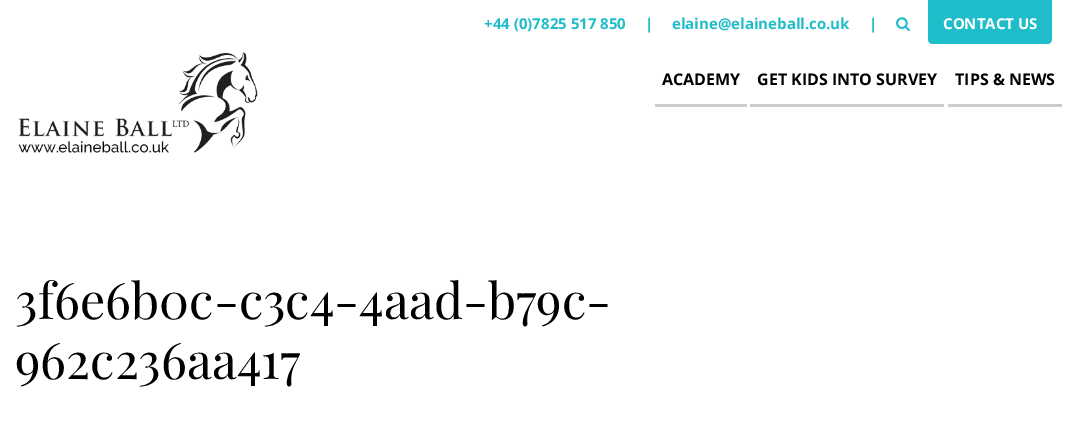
%!PS
<< /PageSize [1067 441] >> setpagedevice
/rgb { dup -16 bitshift 255 div exch dup -8 bitshift 255 and 255 div exch 255 and 255 div setrgbcolor } def
/font { [ exch dup neg 0 0 3 -1 roll 0 0 ] selectfont } def
/text { moveto show } def
/picture { 5 dict begin { /h /w /y /x /name } { exch def } forall
  gsave x y translate w h scale
  w h 8 [w 0 0 h 0 0] name (r) file false 3 colorimage grestore end } def
0 441 translate 1 -1 scale
4 setmiterlimit
/s1 { /OpenSans-Bold 15 font 16#1EBDC9 rgb } def
/s2 { /OpenSans-Bold 15 font 16#FFFFFF rgb } def
/s3 { /OpenSans-Bold 16 font 16#000000 rgb } def
/s4 { /PlayfairDisplay-Regular 50 font 16#000000 rgb } def
16#FFFFFF rgb
0 0 1067 441 rectfill
s1
(+44 \(0\)7825 517 850) 484 29 text
(|) 645 29 text
(elaine@elaineball.co.uk) 672 29 text
(|) 869 29 text
(pic1.raw) 896 17 14 15 picture
928 0 moveto 1052 0 lineto 1052 39 lineto 1052 42 1050 44 1047 44 curveto 933 44 lineto 930 44 928 42 928 39 curveto closepath fill
s2
(CONTACT US) 943 29 text
16#CCCCCC rgb
655 104 92 3 rectfill
s3
(ACADEMY) 662 85 text
16#CCCCCC rgb
750 104 194 3 rectfill
s3
(GET KIDS INTO SURVEY) 757 85 text
16#CCCCCC rgb
948 104 114 3 rectfill
s3
(TIPS & NEWS) 955 85 text
(pic2.raw) 18 52 240 101 picture
s4
(3f6e6b0c-c3c4-4aad-b79c-) 15 319 text
(962c236aa417) 15 379 text
showpage
